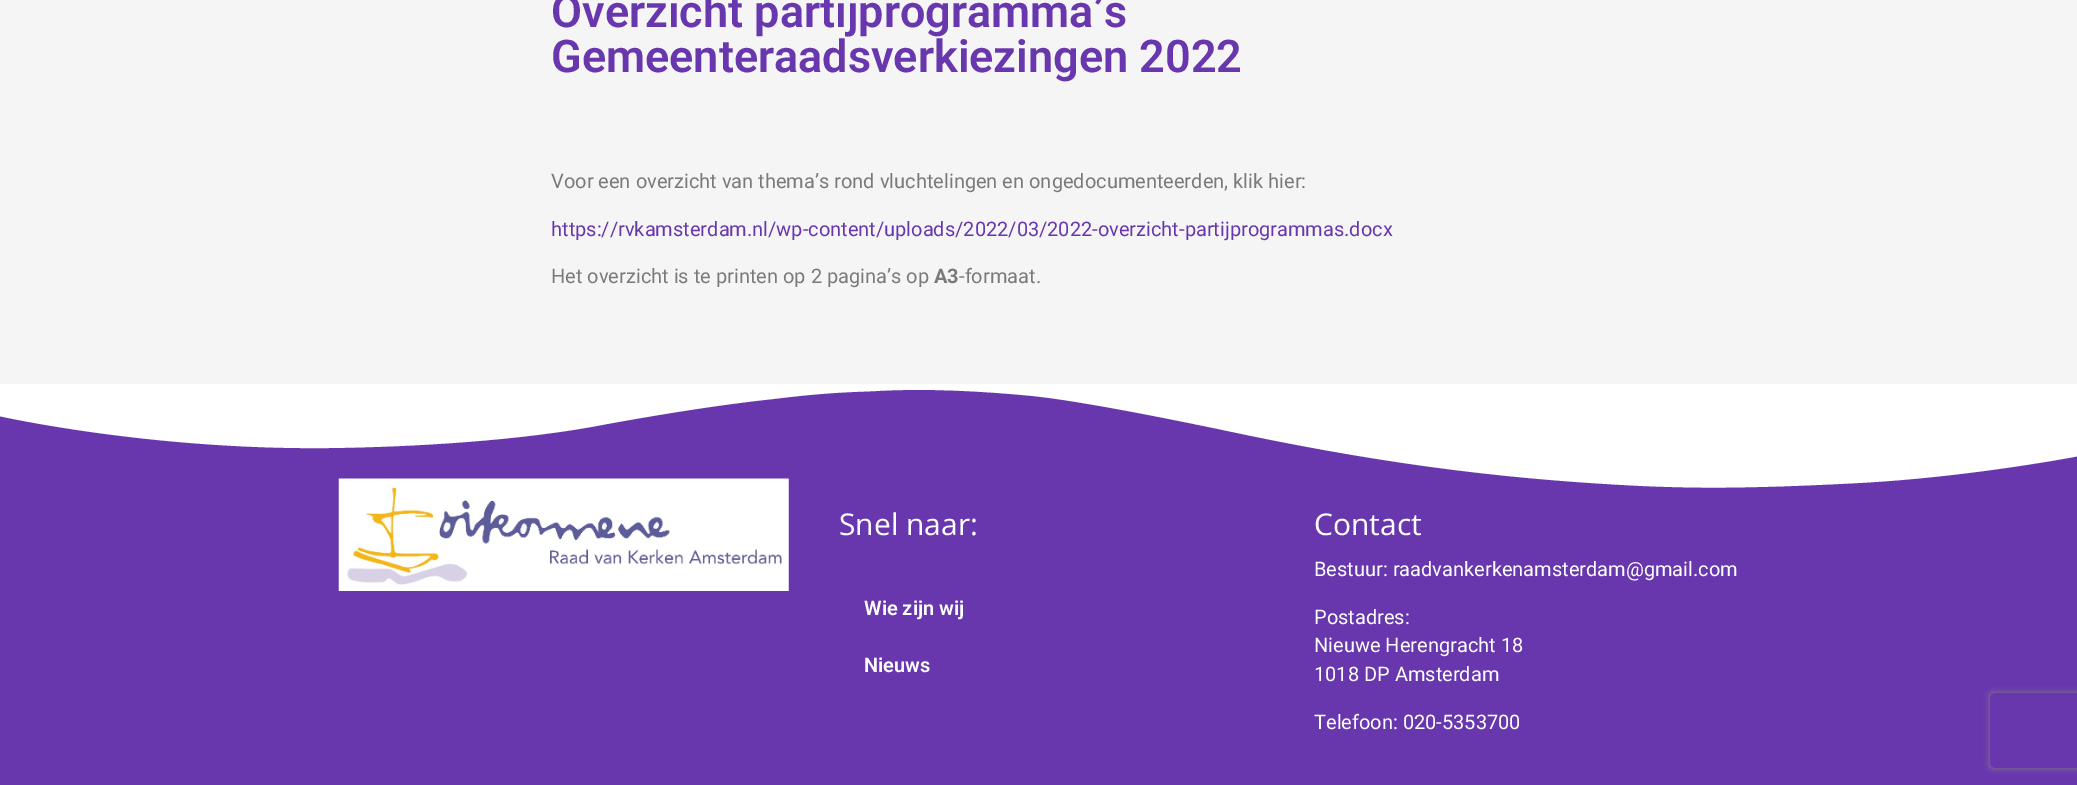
%!PS
<< /PageSize [2077 785] /PageUsesTransparency true >> setpagedevice
/rgb { dup -16 bitshift 255 div exch dup -8 bitshift 255 and 255 div exch 255 and 255 div setrgbcolor } def
/font { [ exch dup neg 0 0 3 -1 roll 0 0 ] selectfont } def
/text { moveto show } def
/alpha { dup .setfillconstantalpha .setstrokeconstantalpha } def
/roundrect { 5 dict begin { /r /h /w /y /x } { exch def } forall
  x r add y moveto x w add y 2 copy h add r arct x w add y h add x 1 index r arct
  x y h add x y r arct x y 2 copy exch w add exch r arct closepath end } def
/shadow { 12 dict begin { /a /b /q /h /w /y /x } { exch def } forall gsave /was 0 def
  9 -2 -9 { dup b mul 4 div /e exch def 1 sub .425 mul 2.718 exch exp 1 add a .99 .min exch div /now exch def
    1 1 now sub 1 was sub div sub alpha /was now def
    w h .min e 2 mul add 0 gt { x e sub y e sub w e 2 mul add h e 2 mul add
      q e add b .6 mul add w h .min 2 div e add .min 0 .max roundrect fill } if } for grestore end } def
/picture { 5 dict begin { /h /w /y /x /name } { exch def } forall
  gsave x y translate w h scale
  w h 8 [w 0 0 h 0 0] name (r) file false 3 colorimage grestore end } def
0 .pushpdf14devicefilter
0 785 translate 1 -1 scale
4 setmiterlimit
/s1 { /Roboto-SemiBold 45 font 16#6937AD rgb } def
/s2 { /Roboto-Regular 20 font 16#7A7A7A rgb } def
/s3 { /Roboto-Regular 20 font 16#6937AD rgb } def
/s4 { /Roboto-Bold 20 font 16#7A7A7A rgb } def
/s5 { /OpenSans-Regular 30 font 16#FFFFFF rgb } def
/s6 { /Roboto-SemiBold 20 font 16#FFFFFF rgb } def
/s7 { /Roboto-Regular 20 font 16#FFFFFF rgb } def
16#F5F5F5 rgb
0 0 2077 785 rectfill
s1
(Overzicht partijprogramma’s) 551 27 text
(Gemeenteraadsverkiezingen 2022) 551 72 text
s2
(Voor een overzicht van thema’s rond vluchtelingen en ongedocumenteerden, klik hier:) 551 188 text
s3
(https://rvkamsterdam.nl/wp-content/uploads/2022/03/2022-overzicht-partijprogrammas.docx) 551 236 text
s2
(Het overzicht is te printen op 2 pagina’s op) 551 283 text
s4
(A3) 934 283 text
s2
(-formaat.) 959 283 text
16#6937AD rgb
0 389 2077 396 rectfill
16#FFFFFF rgb
876 391 moveto 923 388 983 391 1033 396 curveto 1082 401 1181 421 1242 434 curveto 1400 467 1520 480 1643 486 curveto 1692 488 1744 489 1858 483 curveto 1971 477 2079 456 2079 456 curveto 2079 384 lineto -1 384 lineto -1 416 lineto -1 416 149 450 329 448 curveto 410 447 521 441 607 424 curveto 651 416 716 405 773 399 curveto 829 392 855 392 876 391 curveto closepath fill
(pic1.raw) 338 478 451 113 picture
s5
(Snel naar:) 839 535 text
s6
(Wie zijn wij) 864 615 text
(Nieuws) 864 672 text
s5
(Contact) 1314 535 text
s7
(Bestuur: raadvankerkenamsterdam@gmail.com) 1314 576 text
(Postadres:) 1314 624 text
(Nieuwe Herengracht 18) 1314 652 text
(1018 DP Amsterdam) 1314 681 text
(Telefoon: 020-5353700) 1314 729 text
gsave
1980 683 moveto 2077 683 lineto 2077 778 lineto 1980 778 lineto closepath 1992.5 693 moveto 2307.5 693 lineto 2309 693 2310 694 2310 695.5 curveto 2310 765.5 lineto 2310 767 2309 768 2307.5 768 curveto 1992.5 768 lineto 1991 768 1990 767 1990 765.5 curveto 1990 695.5 lineto 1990 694 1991 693 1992.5 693 curveto closepath eoclip newpath
16#808080 rgb
1990 693 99 75 2.5 3 1 shadow
grestore
.poppdf14devicefilter showpage
